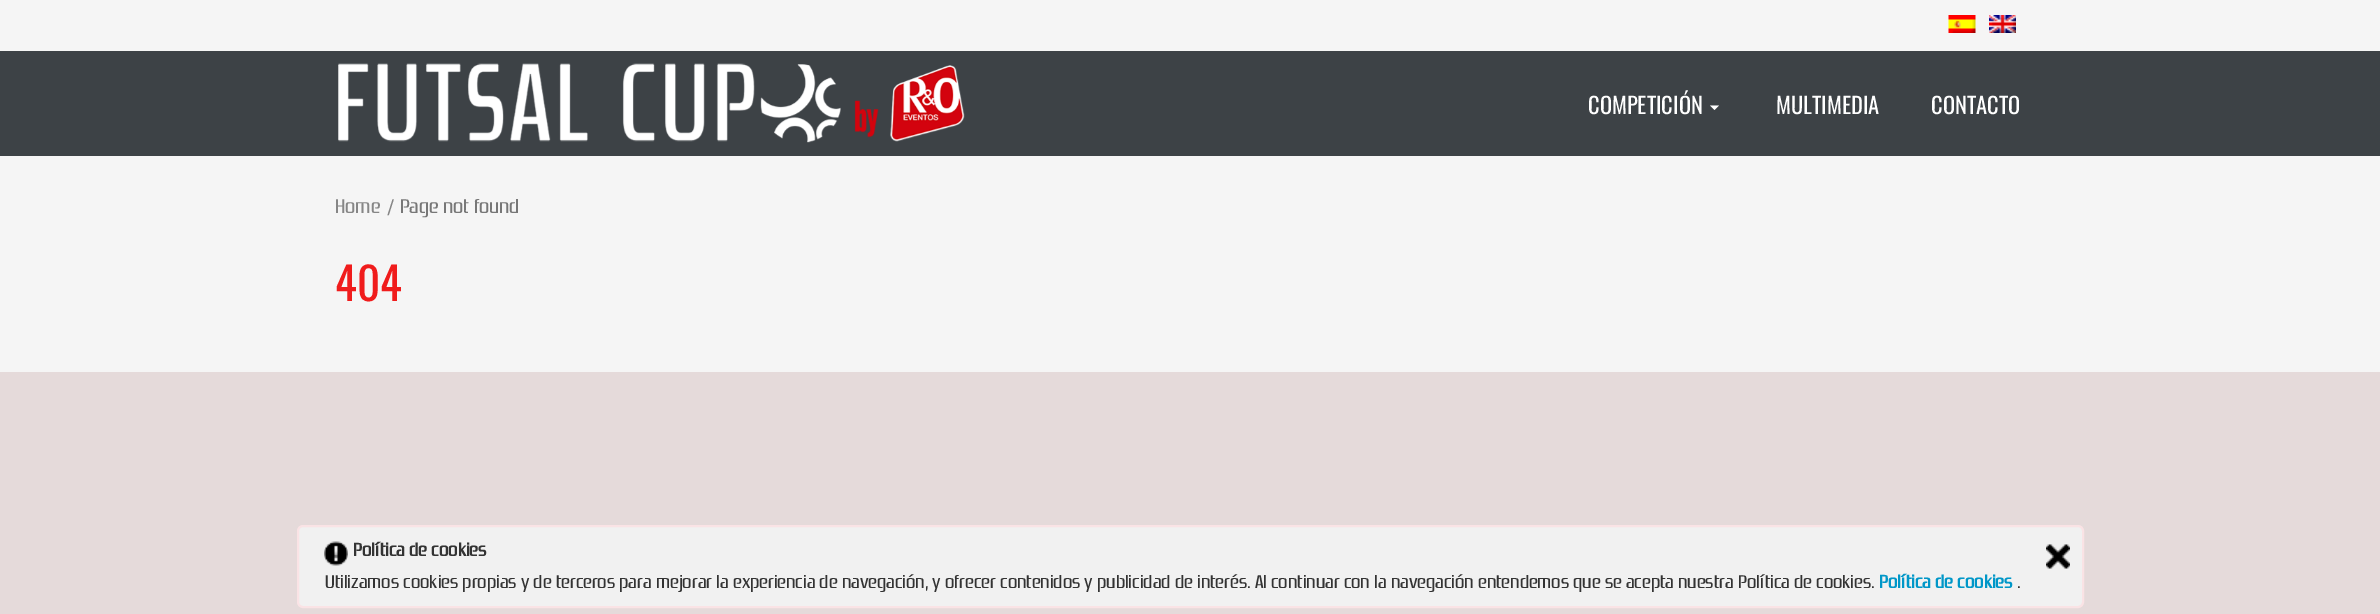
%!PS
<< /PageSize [2380 614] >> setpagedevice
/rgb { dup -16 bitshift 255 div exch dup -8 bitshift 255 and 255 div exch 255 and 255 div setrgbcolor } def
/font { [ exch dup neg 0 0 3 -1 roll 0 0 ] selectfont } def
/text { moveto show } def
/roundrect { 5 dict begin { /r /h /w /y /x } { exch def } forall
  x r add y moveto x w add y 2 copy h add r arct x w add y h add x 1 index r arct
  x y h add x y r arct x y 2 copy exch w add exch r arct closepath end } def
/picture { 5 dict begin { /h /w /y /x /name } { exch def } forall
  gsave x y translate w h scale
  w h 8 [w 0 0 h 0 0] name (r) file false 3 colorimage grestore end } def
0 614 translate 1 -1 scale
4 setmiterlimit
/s1 { /Oswald-Regular 22.5 font 16#FFFFFF rgb } def
/s2 { /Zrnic-Regular 19.5 font 16#868686 rgb } def
/s3 { /Zrnic-Regular 19.5 font 16#777777 rgb } def
/s4 { /Oswald-Regular 45 font 16#F01C1C rgb } def
/s5 { /Zrnic-Bold 18 font 16#333333 rgb } def
/s6 { /Zrnic-Regular 18 font 16#333333 rgb } def
/s7 { /Zrnic-Bold 18 font 16#0097C8 rgb } def
16#F5F5F5 rgb
0 0 2380 614 rectfill
(pic1.raw) 1948 15 28 18 picture
(pic2.raw) 1989 15 27 18 picture
16#3D4246 rgb
0 51 2380 105 rectfill
(pic3.raw) 338 63 627 80 picture
s1
(COMPETICIÓN) 1588 114 text
1710 105.5 moveto 1714.5 110 lineto 1719 105.5 lineto closepath fill
(MULTIMEDIA) 1776 114 text
(CONTACTO) 1931 114 text
s2
(Home) 335 213 text
(/) 388 213 text
s3
(Page not found) 400 213 text
s4
(404) 335 301 text
16#E5DADA rgb
0 372 2380 242 rectfill
16#F1F1F1 rgb
298 526 1785 81 5 roundrect gsave fill grestore
16#FAE3E5 rgb
2 setlinewidth
stroke
(pic4.raw) 324 541 24 25 picture
s5
(Política de cookies) 353 556 text
(pic5.raw) 2046 544 24 25 picture
s6
(Utilizamos cookies propias y de terceros para mejorar la experiencia de navegación, y ofrecer contenidos y publicidad de interés. Al continuar con la navegación entendemos que se acepta nuestra Política de cookies.) 325 588 text
s7
(Política de cookies) 1879 588 text
s6
(.) 2017 588 text
showpage
